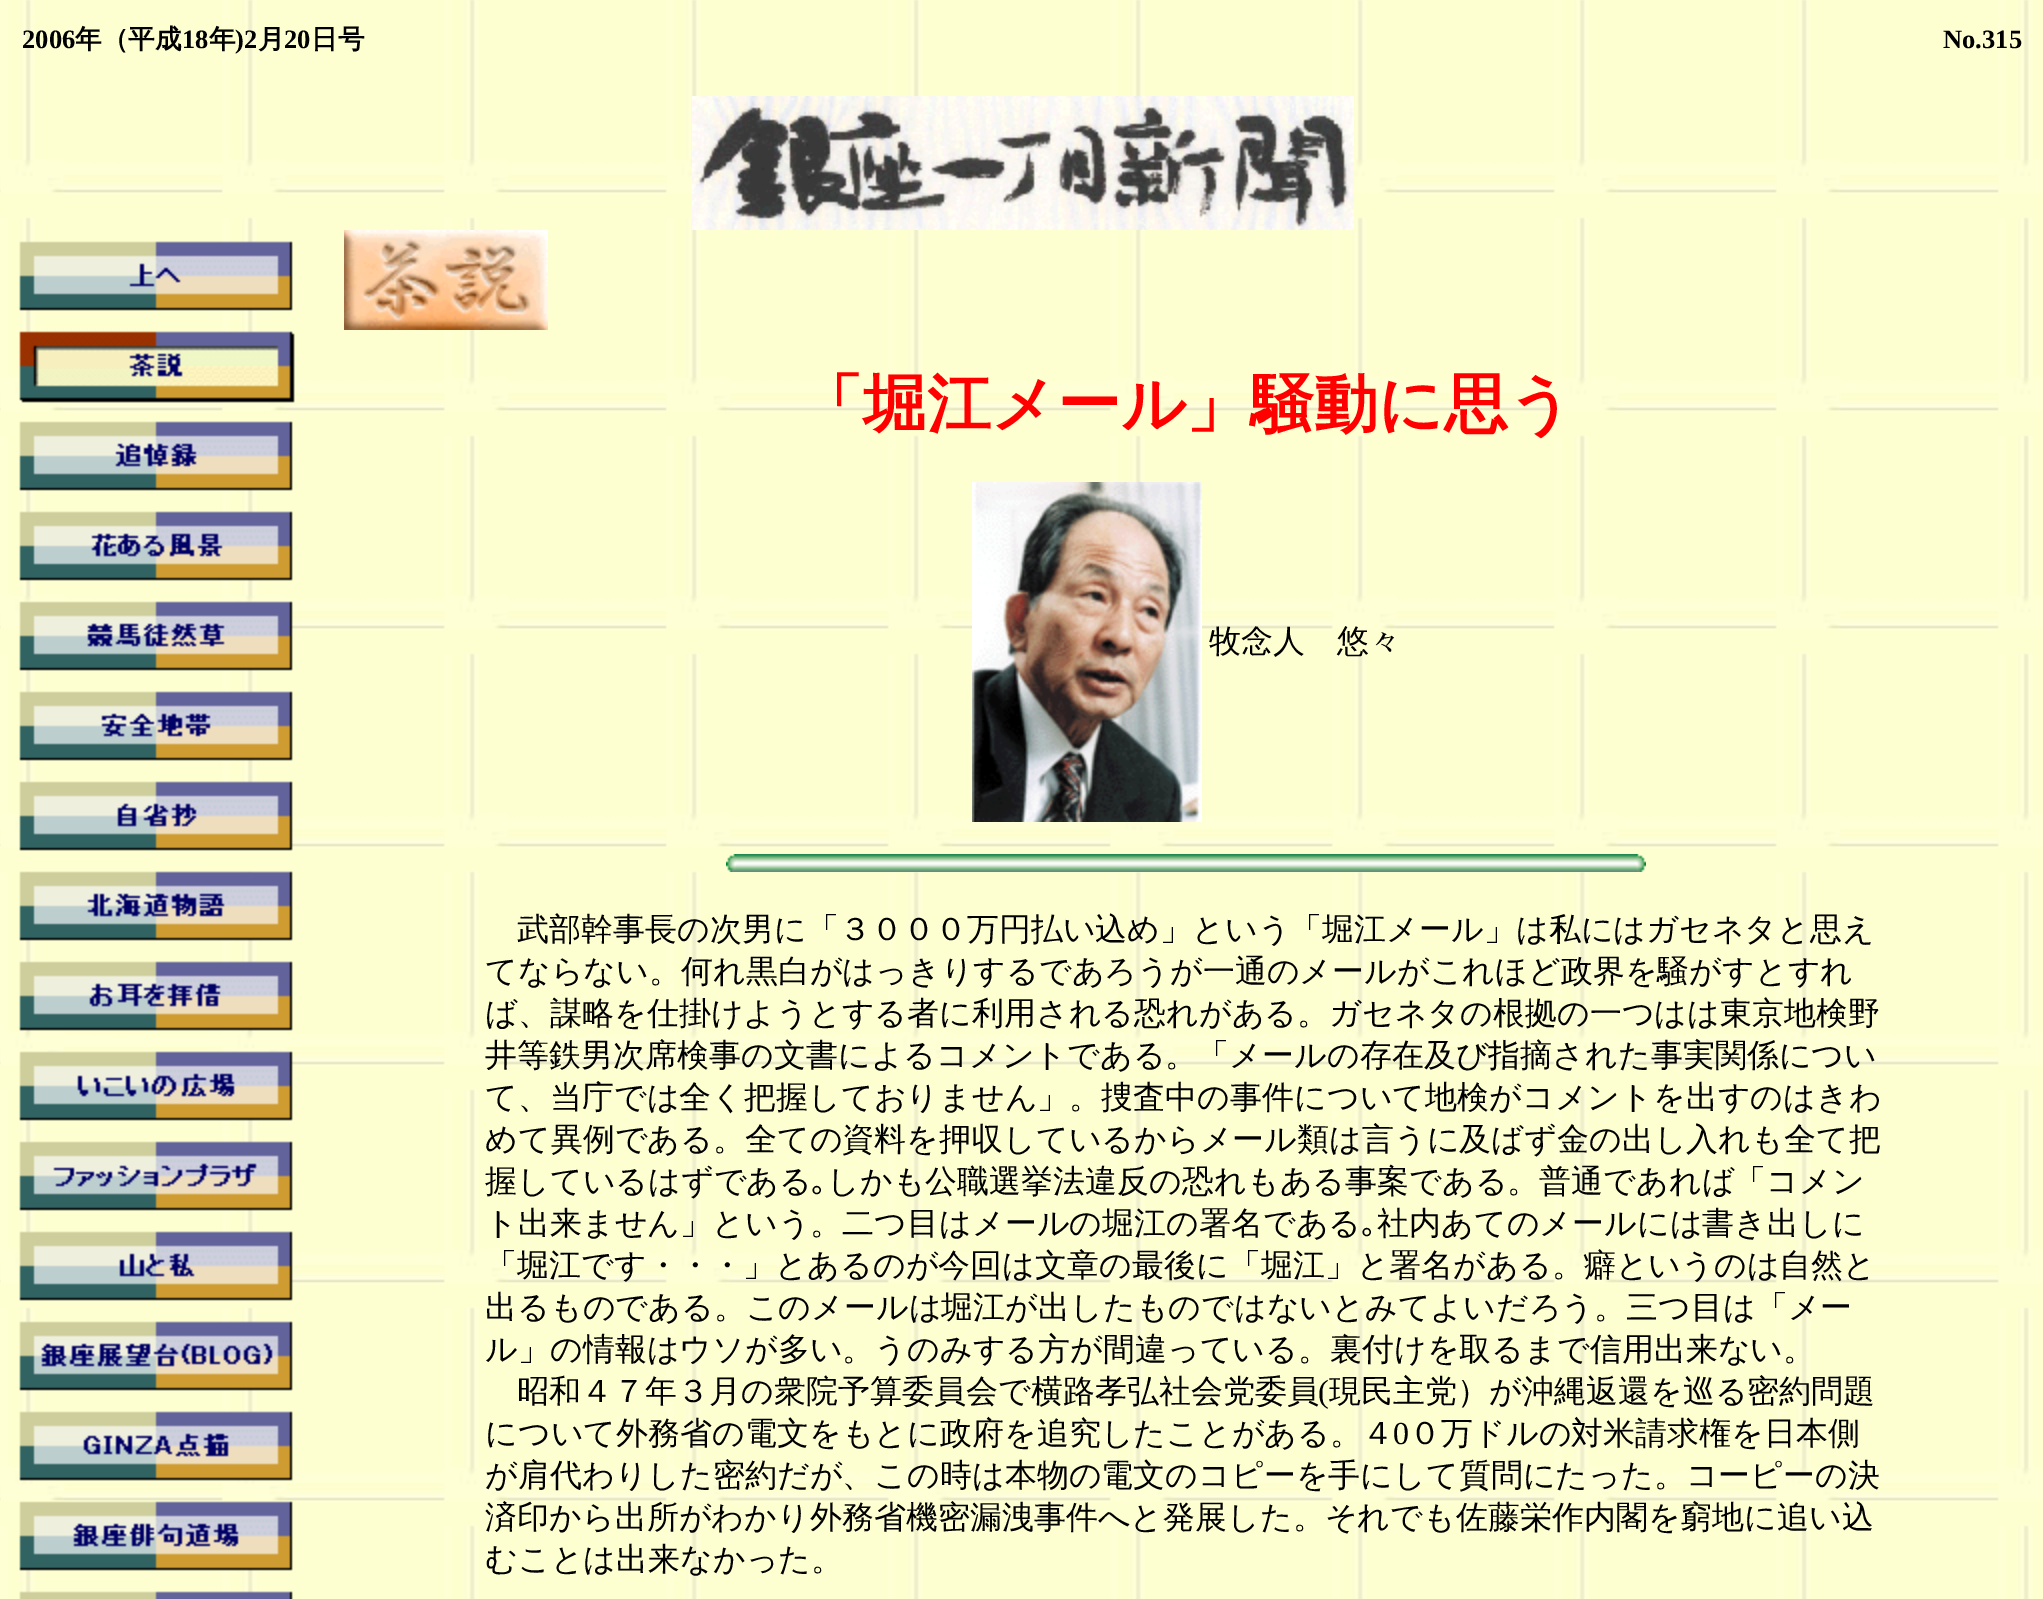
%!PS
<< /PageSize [2043 1599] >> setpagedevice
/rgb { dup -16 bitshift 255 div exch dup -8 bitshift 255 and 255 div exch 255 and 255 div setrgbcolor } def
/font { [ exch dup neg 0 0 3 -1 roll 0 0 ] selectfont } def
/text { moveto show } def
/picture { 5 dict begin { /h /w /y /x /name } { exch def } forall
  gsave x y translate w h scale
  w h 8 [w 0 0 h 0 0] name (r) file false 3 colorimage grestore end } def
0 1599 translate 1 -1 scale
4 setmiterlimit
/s1 { /LiberationSerif-Bold 26.5 font 16#000000 rgb } def
/s2 { /WenQuanYiZenHei-Bold 26.5 font 16#000000 rgb } def
/s3 { /WenQuanYiZenHei-Bold 64 font 16#FF0000 rgb } def
/s4 { /WenQuanYiZenHei-Medium 32 font 16#000000 rgb } def
/s5 { /IPAGothic-Regular 32 font 16#000000 rgb } def
/s6 { /LiberationSerif-Regular 32 font 16#000000 rgb } def
16#FFFFFF rgb
0 0 2043 1599 rectfill
(pic1.raw) 0 0 2043 1599 picture
s1
(2006) 22 48 text
s2
(年（平成) 75 48 text
s1
(18) 182 48 text
s2
(年) 209 48 text
s1
(\)2) 235 48 text
s2
(月) 258 48 text
s1
(20) 284 48 text
s2
(日号) 311 48 text
s1
(No.315) 1943 48 text
(pic2.raw) 692 96 662 134 picture
(pic3.raw) 19 241 274 70 picture
(pic4.raw) 19 331 276 72 picture
(pic5.raw) 19 421 274 70 picture
(pic6.raw) 19 511 274 70 picture
(pic7.raw) 19 601 274 70 picture
(pic8.raw) 19 691 274 70 picture
(pic9.raw) 19 781 274 70 picture
(pic10.raw) 19 871 274 70 picture
(pic11.raw) 19 961 274 70 picture
(pic12.raw) 19 1051 274 70 picture
(pic13.raw) 19 1141 274 70 picture
(pic14.raw) 19 1231 274 70 picture
(pic15.raw) 19 1321 274 70 picture
(pic16.raw) 19 1411 274 70 picture
(pic17.raw) 19 1501 274 70 picture
(pic18.raw) 19 1591 274 8 picture
(pic19.raw) 344 230 204 100 picture
s3
(「堀江メール」騒動に思う) 799 426 text
(pic20.raw) 972 482 230 340 picture
s4
(牧念人　悠々) 1209 652 text
(pic21.raw) 726 854 920 18 picture
(武部幹事長の次男に「３０００万円払い込め」という「堀江メール」は私にはガセネタと思え) 517 940 text
(てならない。何れ黒白がはっきりするであろうが一通のメールがこれほど政界を騒がすとすれ) 485 982 text
(ば、謀略を仕掛けようとする者に利用される恐れがある。ガセネタの根拠の一つはは東京地検野) 485 1024 text
(井等鉄男次席検事の文書によるコメントである。「メールの存在及び指摘された事実関係につい) 485 1066 text
(て、当庁では全く把握しておりません」。捜査中の事件について地検がコメントを出すのはきわ) 485 1108 text
(めて異例である。全ての資料を押収しているからメール類は言うに及ばず金の出し入れも全て把) 485 1150 text
(握しているはずである) 485 1192 text
s5
(｡) 811 1192 text
s4
(しかも公職選挙法違反の恐れもある事案である。普通であれば「コメン) 827 1192 text
(ト出来ません」という。二つ目はメールの堀江の署名である) 485 1234 text
s5
(｡) 1361 1234 text
s4
(社内あてのメールには書き出しに) 1377 1234 text
(「堀江です・・・」とあるのが今回は文章の最後に「堀江」と署名がある。癖というのは自然と) 485 1276 text
(出るものである。このメールは堀江が出したものではないとみてよいだろう。三つ目は「メー) 485 1318 text
(ル」の情報はウソが多い。うのみする方が間違っている。裏付けを取るまで信用出来ない。) 485 1360 text
(昭和４７年３月の衆院予算委員会で横路孝弘社会党委員) 517 1402 text
s6
(\() 1318 1402 text
s4
(現民主党）が沖縄返還を巡る密約問題) 1329 1402 text
(について外務省の電文をもとに政府を追究したことがある。４) 485 1444 text
s6
(0) 1393 1444 text
s4
(０万ドルの対米請求権を日本側) 1409 1444 text
(が肩代わりした密約だが、この時は本物の電文のコピーを手にして質問にたった。コーピーの決) 485 1486 text
(済印から出所がわかり外務省機密漏洩事件へと発展した。それでも佐藤栄作内閣を窮地に追い込) 485 1528 text
(むことは出来なかった。) 485 1570 text
showpage
